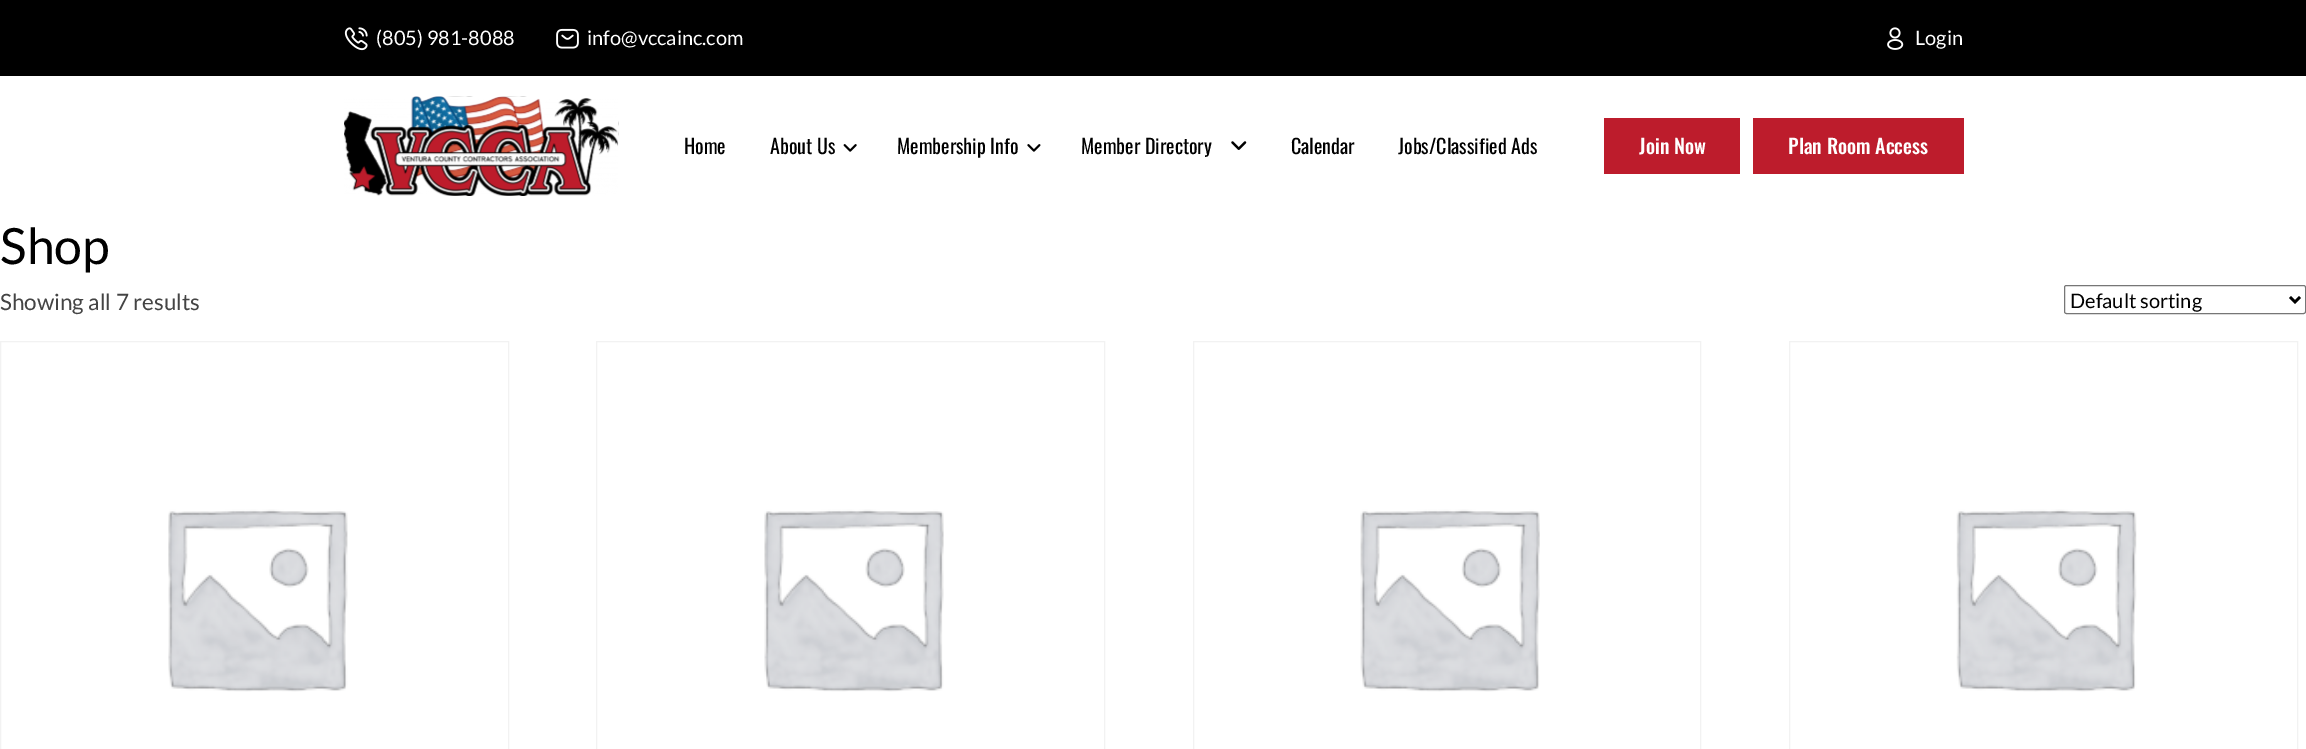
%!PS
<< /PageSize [2306 749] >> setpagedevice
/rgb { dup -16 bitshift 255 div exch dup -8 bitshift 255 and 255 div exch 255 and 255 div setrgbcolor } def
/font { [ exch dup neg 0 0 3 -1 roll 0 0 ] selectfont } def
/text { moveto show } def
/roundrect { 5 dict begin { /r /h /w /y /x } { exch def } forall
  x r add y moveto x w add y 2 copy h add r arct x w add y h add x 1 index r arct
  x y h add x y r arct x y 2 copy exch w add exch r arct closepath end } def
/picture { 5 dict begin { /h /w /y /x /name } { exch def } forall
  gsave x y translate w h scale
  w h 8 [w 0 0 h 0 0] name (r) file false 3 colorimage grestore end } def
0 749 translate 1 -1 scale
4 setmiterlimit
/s1 { /Lato-Regular 20 font 16#FFFFFF rgb } def
/s2 { /Oswald-Regular 20 font 16#000000 rgb } def
/s3 { /Oswald-Medium 20 font 16#FFFFFF rgb } def
/s4 { /Lato-Regular 50 font 16#000000 rgb } def
/s5 { /Lato-Regular 22.5 font 16#444444 rgb } def
/s6 { /Lato-Regular 20 font 16#000000 rgb } def
16#FFFFFF rgb
0 0 2306 749 rectfill
16#000000 rgb
0 0 2306 76 rectfill
(pic1.raw) 344 27 24 24 picture
s1
(\(805\) 981-8088) 376 45 text
(pic2.raw) 556 28 23 21 picture
(info@vccainc.com) 587 45 text
(pic3.raw) 1887 27 17 23 picture
(Login) 1915 45 text
(pic4.raw) 344 96 275 100 picture
s2
(Home) 684 154 text
(About Us) 770 154 text
(pic5.raw) 843 144 14 8 picture
(Membership Info) 897 154 text
(pic6.raw) 1027 144 14 8 picture
(Member Directory) 1081 154 text
(pic7.raw) 1231 141 16 9 picture
(Calendar) 1291 154 text
(Jobs/Classified Ads) 1398 154 text
16#BD1C2C rgb
1604 118 136 56 rectfill
s3
(Join Now) 1639 154 text
16#BD1C2C rgb
1753 118 211 56 rectfill
s3
(Plan Room Access) 1788 154 text
s4
(Shop) 0 264 text
s5
(Showing all 7 results) 0 310 text
16#767676 rgb
2064.5 285.5 241 28 2 roundrect stroke
16#000000 rgb
2.5 setlinewidth
2290 297 moveto 2295 302 lineto 2300 297 lineto stroke
s6
(Default sorting) 2070 308 text
16#F2F2F2 rgb
1 setlinewidth
0.5 341.5 508 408 rectstroke
(pic8.raw) 168 509 180 183 picture
596.5 341.5 508 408 rectstroke
(pic9.raw) 764 509 180 183 picture
1193.5 341.5 507 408 rectstroke
(pic10.raw) 1360 509 180 183 picture
1789.5 341.5 508 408 rectstroke
(pic11.raw) 1956 509 181 183 picture
showpage
